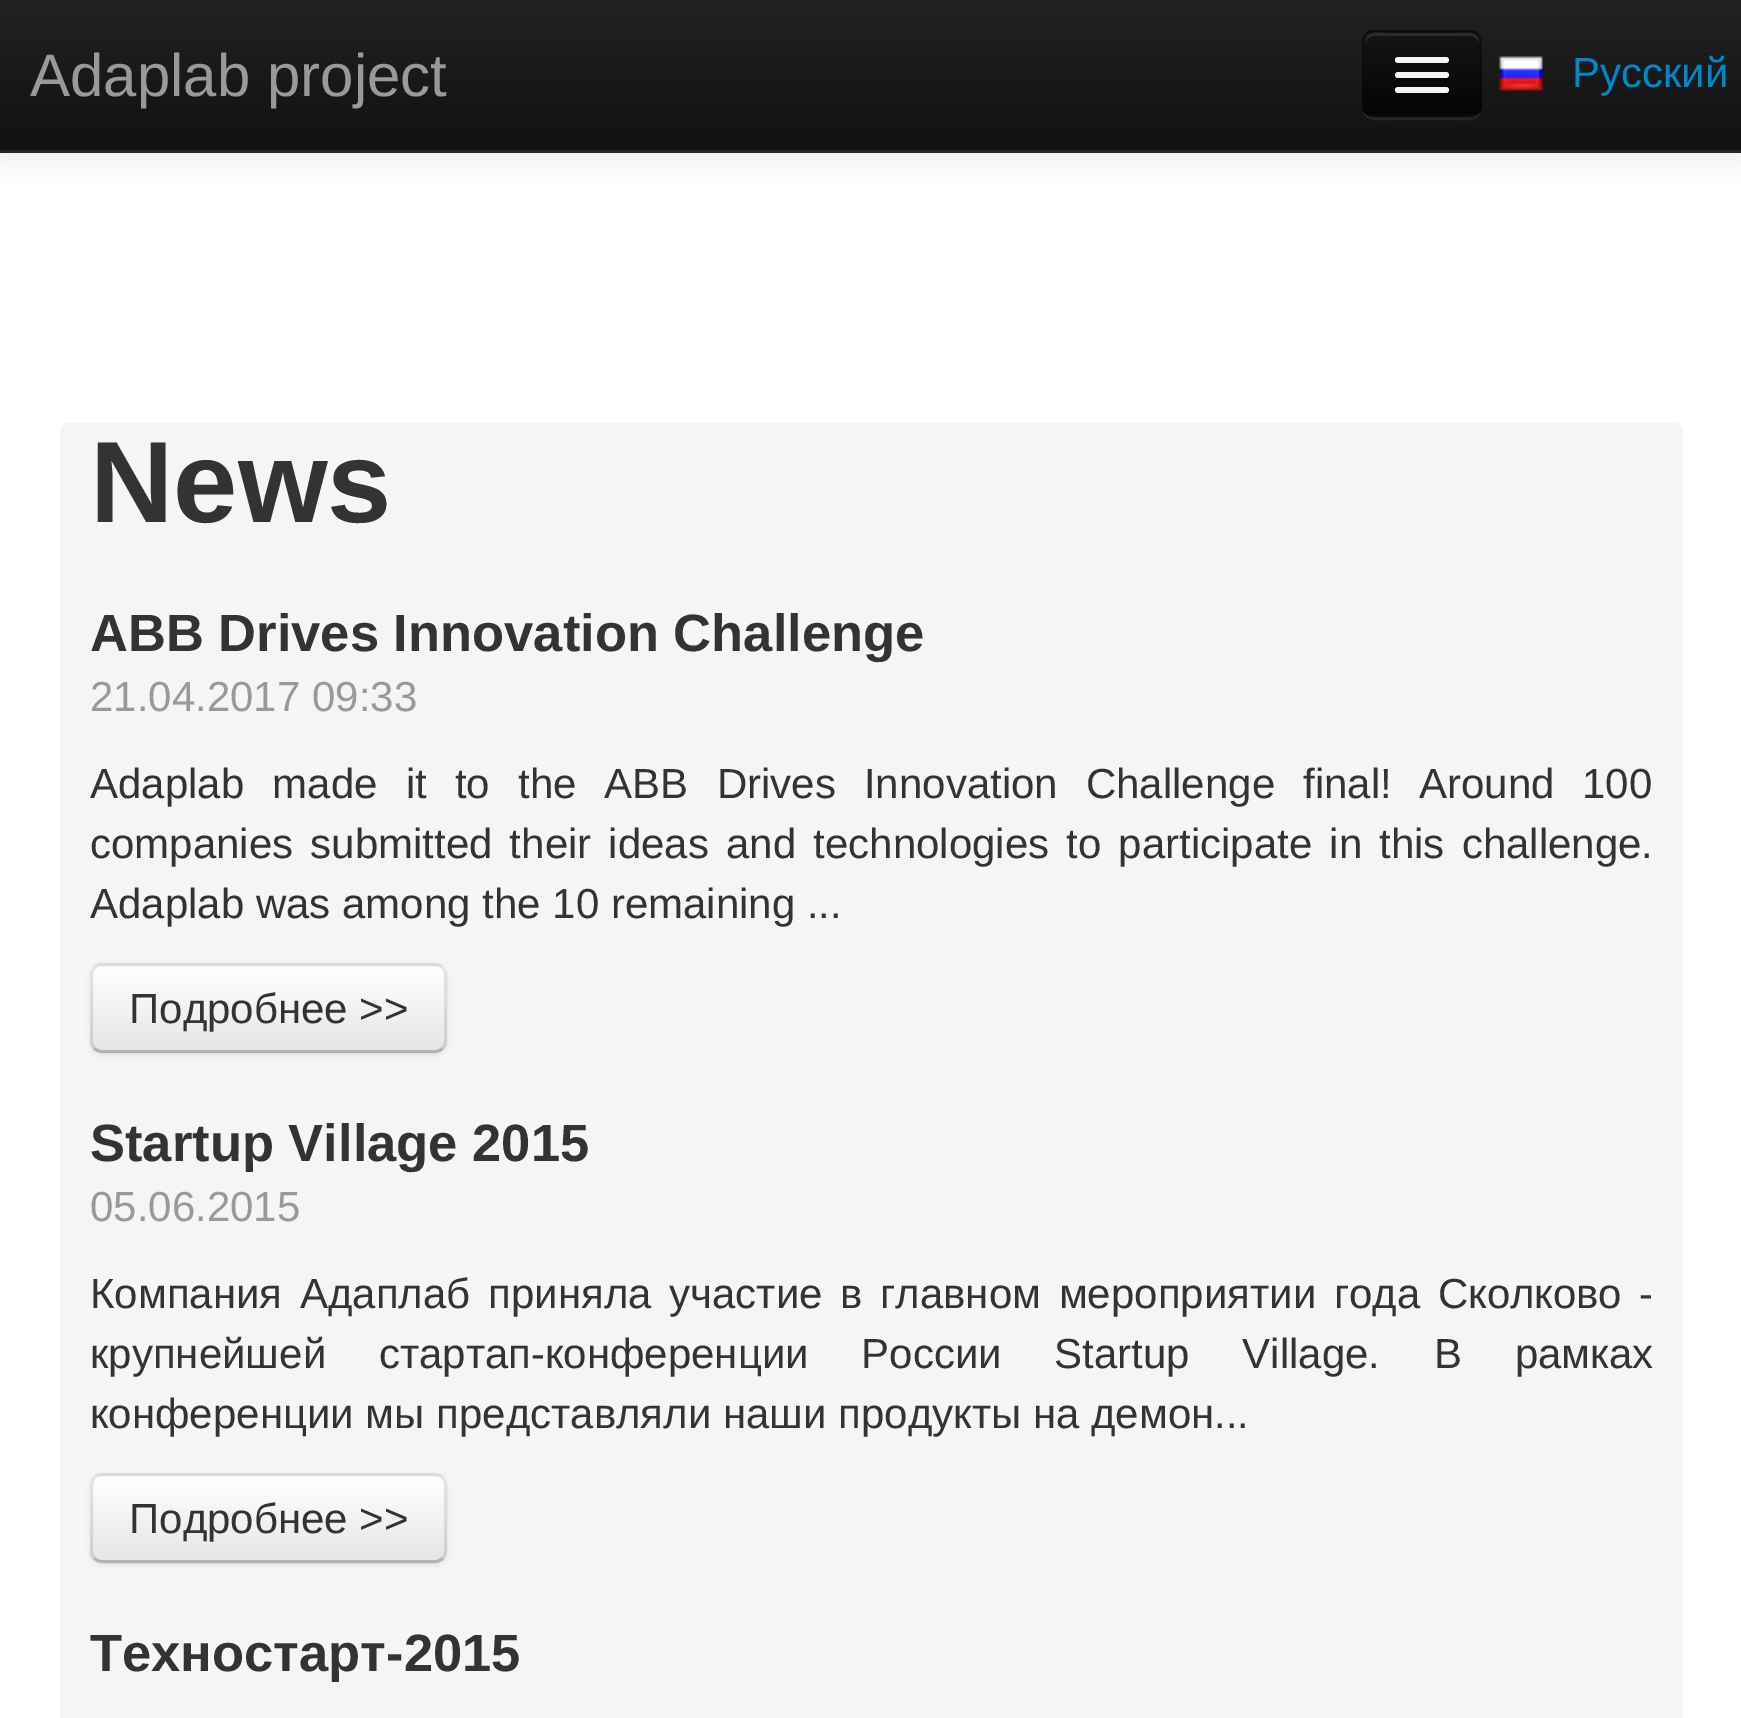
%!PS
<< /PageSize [1741 1718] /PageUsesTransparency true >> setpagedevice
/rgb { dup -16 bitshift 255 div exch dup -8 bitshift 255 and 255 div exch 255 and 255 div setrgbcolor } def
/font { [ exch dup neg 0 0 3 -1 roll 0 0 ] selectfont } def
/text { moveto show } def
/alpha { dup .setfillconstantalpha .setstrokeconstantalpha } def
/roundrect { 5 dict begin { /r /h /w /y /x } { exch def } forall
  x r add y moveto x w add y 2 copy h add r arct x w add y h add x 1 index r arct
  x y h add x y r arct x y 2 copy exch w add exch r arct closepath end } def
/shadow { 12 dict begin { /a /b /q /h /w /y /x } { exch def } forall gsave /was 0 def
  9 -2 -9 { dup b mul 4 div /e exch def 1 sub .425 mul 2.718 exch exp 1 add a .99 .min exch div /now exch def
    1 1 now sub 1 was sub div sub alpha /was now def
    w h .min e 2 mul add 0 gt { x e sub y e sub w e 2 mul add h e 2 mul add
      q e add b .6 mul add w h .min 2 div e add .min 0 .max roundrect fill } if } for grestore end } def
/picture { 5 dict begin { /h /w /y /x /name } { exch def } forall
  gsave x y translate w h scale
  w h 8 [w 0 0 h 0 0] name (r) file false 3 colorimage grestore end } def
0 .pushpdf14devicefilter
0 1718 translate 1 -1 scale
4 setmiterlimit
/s1 { /LiberationSans-Regular 60 font 16#999999 rgb } def
/s2 { /LiberationSans-Regular 42 font 16#0088CC rgb } def
/s3 { /LiberationSans-Bold 115.5 font 16#333333 rgb } def
/s4 { /LiberationSans-Bold 52.5 font 16#333333 rgb } def
/s5 { /LiberationSans-Regular 42 font 16#999999 rgb } def
/s6 { /LiberationSans-Regular 42 font 16#333333 rgb } def
16#FFFFFF rgb
0 0 1741 1718 rectfill
16#000000 rgb
0 3 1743 153 0 15 0.1 shadow
gsave 0 0 moveto 1741 0 lineto 1741 150 lineto 0 150 lineto closepath clip newpath
<< /ShadingType 2 /ColorSpace /DeviceRGB /Coords [872 0 872 150] /Extend [true true] /Function << /FunctionType 2 /Domain [0 1] /C0 [0.133 0.133 0.133] /C1 [0.067 0.067 0.067] /N 1 >> >> shfill grestore
16#252525 rgb
0 150 1741 3 rectfill
s1
(Adaplab project) 30 96 text
16#262626 rgb
1362 105 moveto 1362 123 1376 120 1390 120 curveto 1454 120 lineto 1468 120 1482 123 1482 105 curveto 1482 112 1477 117 1470 117 curveto 1374 117 lineto 1367 117 1362 112 1362 105 curveto closepath fill
16#0E0E0E rgb
1362 30 120 87 12 roundrect fill
gsave
1362 30 120 87 12 roundrect clip newpath
gsave 1362 33 moveto 1482 33 lineto 1482 114 lineto 1362 114 lineto closepath clip newpath
<< /ShadingType 2 /ColorSpace /DeviceRGB /Coords [1422 33 1422 114] /Extend [true true] /Function << /FunctionType 2 /Domain [0 1] /C0 [0.082 0.082 0.082] /C1 [0.016 0.016 0.016] /N 1 >> >> shfill grestore
grestore
16#2C2C2C rgb
1374 36 moveto 1470 36 lineto 1475 36 1479 40 1479 45 curveto 1479 29 1467 33 1454 33 curveto 1390 33 lineto 1377 33 1365 29 1365 45 curveto 1365 40 1369 36 1374 36 curveto closepath fill
0.25 alpha
16#000000 rgb
3 setlinewidth
1477.5 112.5 moveto 1475.5 114.5 1473 115.5 1470 115.5 curveto 1374 115.5 lineto 1371 115.5 1368.5 114.5 1366.5 112.5 curveto stroke
0.1 alpha
1366.5 112.5 moveto 1364.5 110.5 1363.5 108 1363.5 105 curveto 1363.5 42 lineto 1363.5 39 1364.5 36.5 1366.5 34.5 curveto 1368.5 32.5 1371 31.5 1374 31.5 curveto 1470 31.5 lineto 1473 31.5 1475.5 32.5 1477.5 34.5 curveto 1479.5 36.5 1480.5 39 1480.5 42 curveto 1480.5 105 lineto 1480.5 108 1479.5 110.5 1477.5 112.5 curveto stroke
1 alpha
16#0B0B0B rgb
1395 62 moveto 1392 68 1406 66 1406 66 curveto 1438 66 lineto 1438 66 1452 68 1449 62 curveto 1448 62 1447 63 1446 63 curveto 1398 63 lineto 1397 63 1396 62 1395 62 curveto closepath fill
16#F5F5F5 rgb
1395 57 54 6 3 roundrect fill
16#080808 rgb
1395 76 moveto 1392 83 1406 81 1406 81 curveto 1438 81 lineto 1438 81 1452 83 1449 76 curveto 1448 77 1447 78 1446 78 curveto 1398 78 lineto 1397 78 1396 77 1395 76 curveto closepath fill
16#F5F5F5 rgb
1395 72 54 6 3 roundrect fill
16#060606 rgb
1395 92 moveto 1392 98 1406 96 1406 96 curveto 1438 96 lineto 1438 96 1452 98 1449 92 curveto 1448 92 1447 93 1446 93 curveto 1398 93 lineto 1397 93 1396 92 1395 92 curveto closepath fill
16#F5F5F5 rgb
1395 87 54 6 3 roundrect fill
(pic1.raw) 1499 56 44 35 picture
s2
(Русский) 1572 87 text
16#F5F5F5 rgb
60 423 1623 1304 9 roundrect fill
s3
(News) 90 522 text
s4
(ABB Drives Innovation Challenge) 90 651 text
s5
(21.04.2017 09:33) 90 711 text
16#333333 rgb
90 798 moveto 16.5 0 32 (Adaplab made it to the ABB Drives Innovation Challenge final!) widthshow
1419 798 moveto 16 0 32 (Around 100) widthshow
90 858 moveto 5.5 0 32 (companies submitted their ideas and technologies to participate in this challenge.) widthshow
(Adaplab was among the 10 remaining ...) 90 918 text
16#000000 rgb
90 966 357 90 12 3 0.05 shadow
16#F5F5F5 rgb
90 963 357 90 12 roundrect fill
gsave
90 963 357 90 12 roundrect clip newpath
gsave 90 966 moveto 447 966 lineto 447 1050 lineto 90 1050 lineto closepath clip newpath
<< /ShadingType 2 /ColorSpace /DeviceRGB /Coords [269 966 269 1050] /Extend [true true] /Function << /FunctionType 2 /Domain [0 1] /C0 [1 1 1] /C1 [0.902 0.902 0.902] /N 1 >> >> shfill grestore
grestore
16#B3B3B3 rgb
442.5 1048.5 moveto 440.5 1050.5 438 1051.5 435 1051.5 curveto 102 1051.5 lineto 99 1051.5 96.5 1050.5 94.5 1048.5 curveto stroke
0.1 alpha
16#000000 rgb
94.5 1048.5 moveto 92.5 1046.5 91.5 1044 91.5 1041 curveto 91.5 975 lineto 91.5 972 92.5 969.5 94.5 967.5 curveto 96.5 965.5 99 964.5 102 964.5 curveto 435 964.5 lineto 438 964.5 440.5 965.5 442.5 967.5 curveto 444.5 969.5 445.5 972 445.5 975 curveto 445.5 1041 lineto 445.5 1044 444.5 1046.5 442.5 1048.5 curveto stroke
1 alpha
s6
(Подробнее >>) 129 1023 text
s4
(Startup Village 2015) 90 1161 text
s5
(05.06.2015) 90 1221 text
16#333333 rgb
90 1308 moveto 6 0 32 (Компания Адаплаб приняла участие в главном мероприятии года Сколково -) widthshow
90 1368 moveto 41 0 32 (крупнейшей стартап-конференции России Startup Village.) widthshow
1434 1368 moveto 41 0 32 (В рамках) widthshow
(конференции мы представляли наши продукты на демон...) 90 1428 text
16#000000 rgb
90 1476 357 90 12 3 0.05 shadow
16#F5F5F5 rgb
90 1473 357 90 12 roundrect fill
gsave
90 1473 357 90 12 roundrect clip newpath
gsave 90 1476 moveto 447 1476 lineto 447 1560 lineto 90 1560 lineto closepath clip newpath
<< /ShadingType 2 /ColorSpace /DeviceRGB /Coords [269 1476 269 1560] /Extend [true true] /Function << /FunctionType 2 /Domain [0 1] /C0 [1 1 1] /C1 [0.902 0.902 0.902] /N 1 >> >> shfill grestore
grestore
16#B3B3B3 rgb
442.5 1558.5 moveto 440.5 1560.5 438 1561.5 435 1561.5 curveto 102 1561.5 lineto 99 1561.5 96.5 1560.5 94.5 1558.5 curveto stroke
0.1 alpha
16#000000 rgb
94.5 1558.5 moveto 92.5 1556.5 91.5 1554 91.5 1551 curveto 91.5 1485 lineto 91.5 1482 92.5 1479.5 94.5 1477.5 curveto 96.5 1475.5 99 1474.5 102 1474.5 curveto 435 1474.5 lineto 438 1474.5 440.5 1475.5 442.5 1477.5 curveto 444.5 1479.5 445.5 1482 445.5 1485 curveto 445.5 1551 lineto 445.5 1554 444.5 1556.5 442.5 1558.5 curveto stroke
1 alpha
s6
(Подробнее >>) 129 1533 text
s4
(Техностарт-2015) 90 1671 text
.poppdf14devicefilter showpage
